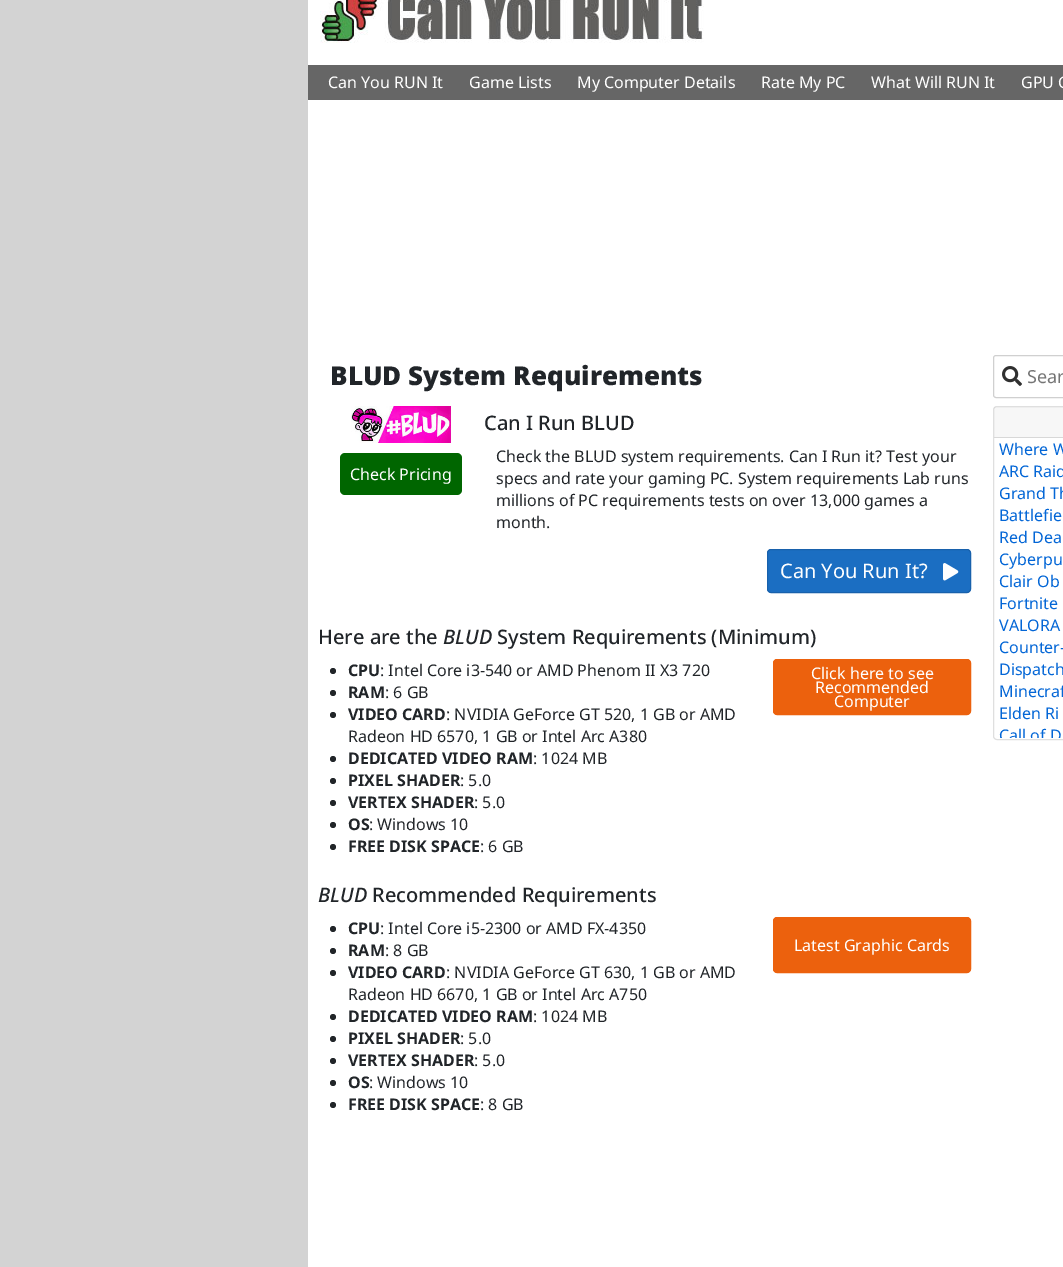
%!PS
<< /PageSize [1063 1267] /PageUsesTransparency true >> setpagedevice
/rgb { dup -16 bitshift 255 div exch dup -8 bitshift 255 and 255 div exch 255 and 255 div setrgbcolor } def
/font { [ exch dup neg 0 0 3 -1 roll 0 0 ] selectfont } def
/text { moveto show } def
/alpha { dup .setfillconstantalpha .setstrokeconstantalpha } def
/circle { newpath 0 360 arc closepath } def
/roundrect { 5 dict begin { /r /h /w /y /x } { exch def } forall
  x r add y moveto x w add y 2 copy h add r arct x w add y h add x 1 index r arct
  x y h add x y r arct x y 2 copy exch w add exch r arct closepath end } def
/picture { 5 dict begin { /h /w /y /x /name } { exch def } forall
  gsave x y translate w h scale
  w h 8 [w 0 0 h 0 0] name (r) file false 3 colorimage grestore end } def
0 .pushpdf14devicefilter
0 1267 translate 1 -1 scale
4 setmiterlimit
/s1 { /NotoSans-Regular 16 font 16#FFFFFF rgb } def
/s2 { /NotoSans-Black 26 font 16#212529 rgb } def
/s3 { /NotoSans-Medium 20 font 16#212529 rgb } def
/s4 { /NotoSans-Regular 16 font 16#212529 rgb } def
/s5 { /NotoSans-Regular 20 font 16#FFFFFF rgb } def
/s6 { /NotoSans-MediumItalic 20 font 16#212529 rgb } def
/s7 { /NotoSans-Bold 16 font 16#212529 rgb } def
/s8 { /NotoSans-Regular 18 font 16#757575 rgb } def
/s9 { /NotoSans-Regular 16 font 16#0366D6 rgb } def
16#FFFFFF rgb
0 0 1063 1267 rectfill
16#D3D3D3 rgb
0 0 308 1267 rectfill
(pic1.raw) 320 0 384 43 picture
16#666666 rgb
308 65 755 35 rectfill
s1
(Can You RUN It) 328 88 text
(Game Lists) 469 88 text
(My Computer Details) 577 88 text
(Rate My PC) 761 88 text
(What Will RUN It) 871 88 text
(GPU C) 1021 88 text
s2
(BLUD System Requirements) 330 385 text
(pic2.raw) 351 406 100 37 picture
16#006600 rgb
340 453 122 42 5 roundrect fill
s1
(Check Pricing) 350 480 text
s3
(Can I Run BLUD) 484 430 text
s4
(Check the BLUD system requirements. Can I Run it? Test your) 496 462 text
(specs and rate your gaming PC. System requirements Lab runs) 496 484 text
(millions of PC requirements tests on over 13,000 games a) 496 506 text
(month.) 496 528 text
16#1B6EC2 rgb
767.5 549.5 203 43 3.5 roundrect gsave fill grestore
16#1861AC rgb
stroke
s5
(Can You Run It?) 780 578 text
(pic3.raw) 943 563 16 18 picture
s3
(Here are the) 318 644 text
s6
(BLUD) 443 644 text
s3
(System Requirements \(Minimum\)) 497 644 text
333 671 3 circle fill
s7
(CPU) 348 676 text
s4
(: Intel Core i3-540 or AMD Phenom II X3 720) 380 676 text
333 693 3 circle fill
s7
(RAM) 348 698 text
s4
(: 6 GB) 385 698 text
333 715 3 circle fill
s7
(VIDEO CARD) 348 720 text
s4
(: NVIDIA GeForce GT 520, 1 GB or AMD) 446 720 text
(Radeon HD 6570, 1 GB or Intel Arc A380) 348 742 text
333 759 3 circle fill
s7
(DEDICATED VIDEO RAM) 348 764 text
s4
(: 1024 MB) 533 764 text
333 781 3 circle fill
s7
(PIXEL SHADER) 348 786 text
s4
(: 5.0) 460 786 text
333 803 3 circle fill
s7
(VERTEX SHADER) 348 808 text
s4
(: 5.0) 474 808 text
333 825 3 circle fill
s7
(OS) 348 830 text
s4
(: Windows 10) 369 830 text
333 847 3 circle fill
s7
(FREE DISK SPACE) 348 852 text
s4
(: 6 GB) 480 852 text
16#EC610D rgb
773.5 659.5 197 55 3.5 roundrect gsave fill grestore
stroke
s1
(Click here to see) 811 679 text
(Recommended) 815 693 text
(Computer) 834 707 text
s6
(BLUD) 318 902 text
s3
(Recommended Requirements) 372 902 text
333 929 3 circle fill
s7
(CPU) 348 934 text
s4
(: Intel Core i5-2300 or AMD FX-4350) 380 934 text
333 951 3 circle fill
s7
(RAM) 348 956 text
s4
(: 8 GB) 385 956 text
333 973 3 circle fill
s7
(VIDEO CARD) 348 978 text
s4
(: NVIDIA GeForce GT 630, 1 GB or AMD) 446 978 text
(Radeon HD 6670, 1 GB or Intel Arc A750) 348 1000 text
333 1017 3 circle fill
s7
(DEDICATED VIDEO RAM) 348 1022 text
s4
(: 1024 MB) 533 1022 text
333 1039 3 circle fill
s7
(PIXEL SHADER) 348 1044 text
s4
(: 5.0) 460 1044 text
333 1061 3 circle fill
s7
(VERTEX SHADER) 348 1066 text
s4
(: 5.0) 474 1066 text
333 1083 3 circle fill
s7
(OS) 348 1088 text
s4
(: Windows 10) 369 1088 text
333 1105 3 circle fill
s7
(FREE DISK SPACE) 348 1110 text
s4
(: 8 GB) 480 1110 text
16#EC610D rgb
773.5 917.5 197 55 3.5 roundrect gsave fill grestore
stroke
s1
(Latest Graphic Cards) 794 951 text
16#D0D0D0 rgb
993.5 355.5 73 42 2.5 roundrect stroke
(pic4.raw) 1002 366 20 20 picture
s8
(Sear) 1027 383 text
16#DFDFDF rgb
993.5 406.5 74 333 3.5 roundrect stroke
0.03 alpha
16#000000 rgb
994 407 69 30 rectfill
1 alpha
16#D8D8D8 rgb
994 437 69 1 rectfill
s9
(Where W) 999 455 text
(ARC Raid) 999 477 text
(Grand Th) 999 499 text
(Battlefie) 999 521 text
(Red Dea) 999 543 text
(Cyberpu) 999 565 text
(Clair Ob) 999 587 text
(Fortnite) 999 609 text
(VALORA) 999 631 text
(Counter-) 999 653 text
(Dispatch) 999 675 text
(Minecraf) 999 697 text
(Elden Ri) 999 719 text
gsave
999 438 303 300 rectclip
(Call of D) 999 741 text
grestore
.poppdf14devicefilter showpage
